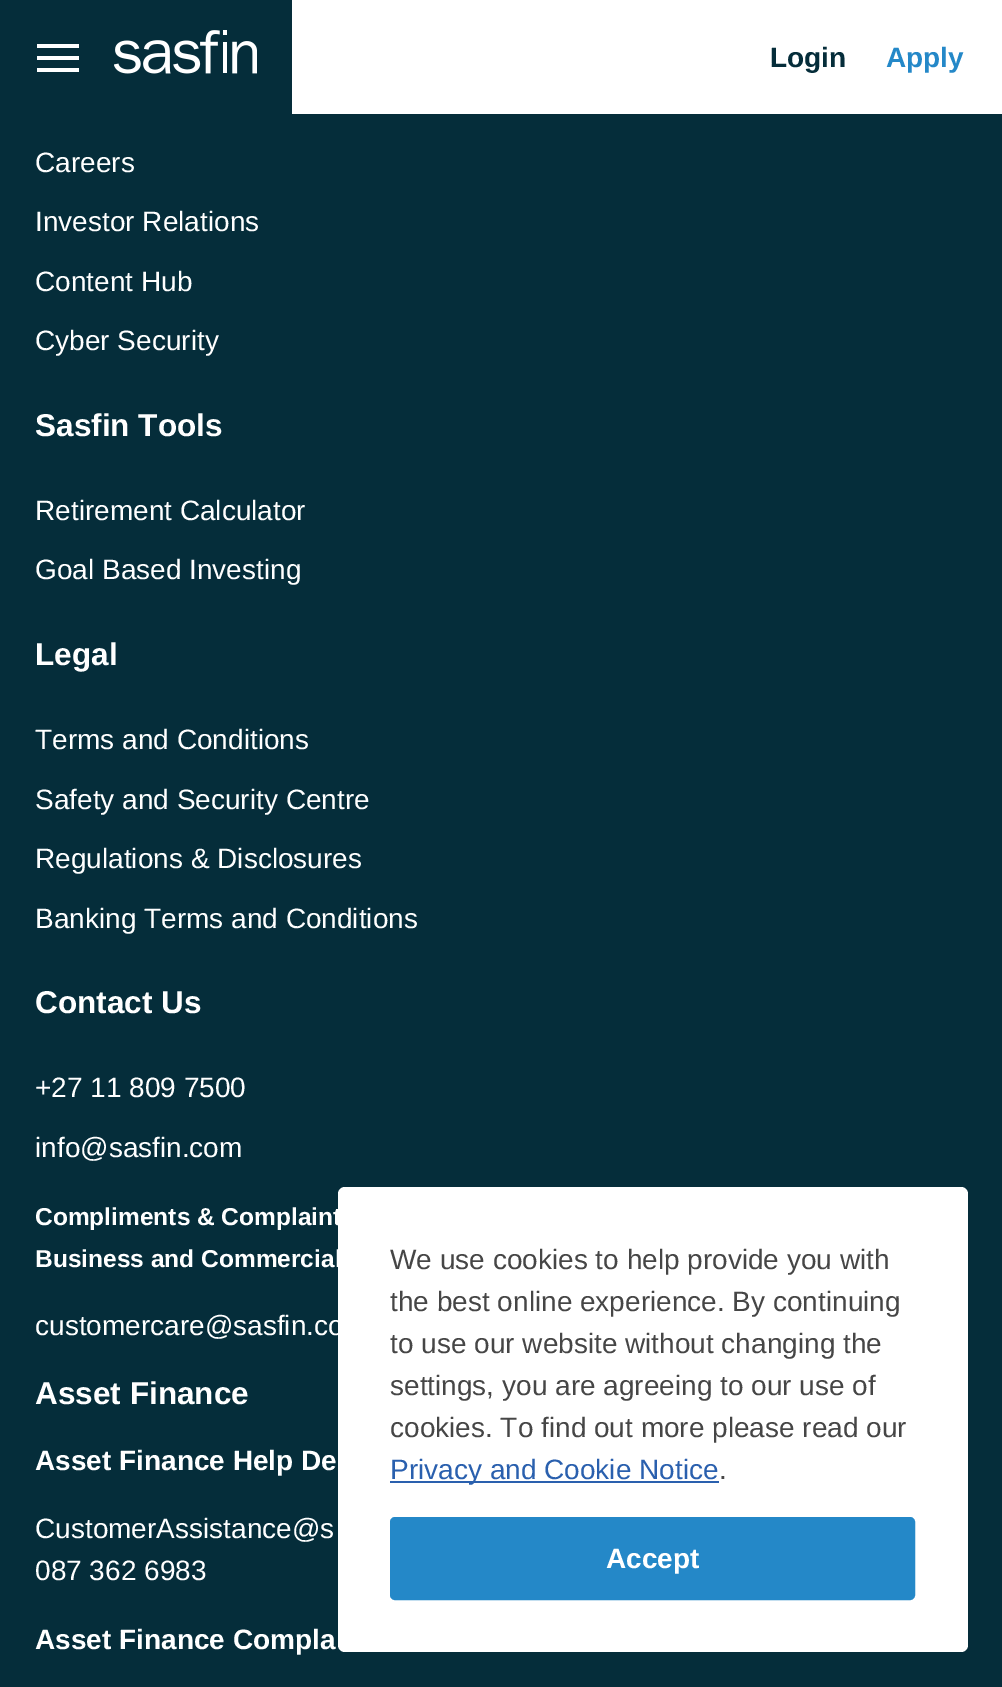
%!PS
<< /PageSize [1002 1687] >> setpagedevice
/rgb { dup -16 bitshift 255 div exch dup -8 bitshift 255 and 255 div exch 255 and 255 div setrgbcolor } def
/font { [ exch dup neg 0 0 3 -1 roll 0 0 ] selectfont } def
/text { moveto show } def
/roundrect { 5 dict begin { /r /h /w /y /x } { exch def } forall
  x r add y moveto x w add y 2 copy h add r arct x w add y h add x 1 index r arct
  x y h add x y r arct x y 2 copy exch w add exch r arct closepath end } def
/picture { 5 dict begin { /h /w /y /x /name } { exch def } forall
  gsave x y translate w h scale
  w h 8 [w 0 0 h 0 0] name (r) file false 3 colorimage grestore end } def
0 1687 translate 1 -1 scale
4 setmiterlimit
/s1 { /LiberationSans-Bold 28 font 16#052D3A rgb } def
/s2 { /LiberationSans-Bold 28 font 16#2488C8 rgb } def
/s3 { /LiberationSans-Regular 28 font 16#FFFFFF rgb } def
/s4 { /LiberationSans-Bold 31.5 font 16#FFFFFF rgb } def
/s5 { /LiberationSans-Bold 24.5 font 16#FFFFFF rgb } def
/s6 { /LiberationSans-Bold 28 font 16#FFFFFF rgb } def
/s7 { /LiberationSans-Regular 28 font 16#464646 rgb } def
/s8 { /LiberationSans-Regular 28 font 16#2A60AE rgb } def
16#052D3A rgb
0 0 1002 1687 rectfill
16#FFFFFF rgb
292 0 710 114 rectfill
37 44 42 4 rectfill
37 56 42 4 rectfill
37 68 42 4 rectfill
(pic1.raw) 114 30 143 44 picture
s1
(Login) 770 67 text
s2
(Apply) 886 67 text
s3
(Careers) 35 172 text
(Investor Relations) 35 231 text
(Content Hub) 35 291 text
(Cyber Security) 35 350 text
s4
(Sasfin Tools) 35 436 text
s3
(Retirement Calculator) 35 520 text
(Goal Based Investing) 35 579 text
s4
(Legal) 35 665 text
s3
(Terms and Conditions) 35 749 text
(Safety and Security Centre) 35 809 text
(Regulations & Disclosures) 35 868 text
(Banking Terms and Conditions) 35 928 text
s4
(Contact Us) 35 1013 text
s3
(+27 11 809 7500) 35 1097 text
(info@sasfin.com) 35 1157 text
s5
(Compliments & Complaint) 35 1225 text
(Business and Commercial) 35 1267 text
s3
(customercare@sasfin.co) 35 1335 text
s4
(Asset Finance) 35 1404 text
s6
(Asset Finance Help De) 35 1470 text
s3
(CustomerAssistance@s) 35 1538 text
(087 362 6983) 35 1580 text
s6
(Asset Finance Compla) 35 1649 text
338 1187 630 465 7 roundrect fill
s7
(We use cookies to help provide you with) 390 1269 text
(the best online experience. By continuing) 390 1311 text
(to use our website without changing the) 390 1353 text
(settings, you are agreeing to our use of) 390 1395 text
(cookies. To find out more please read our) 390 1437 text
16#2A60AE rgb
390 1481 329 2 rectfill
(Privacy and Cookie Notice) 390 1479 text
s7
(.) 719 1479 text
16#2488C8 rgb
391 1518 523 81 4 roundrect gsave fill grestore
2 setlinewidth
stroke
s6
(Accept) 606 1568 text
showpage
